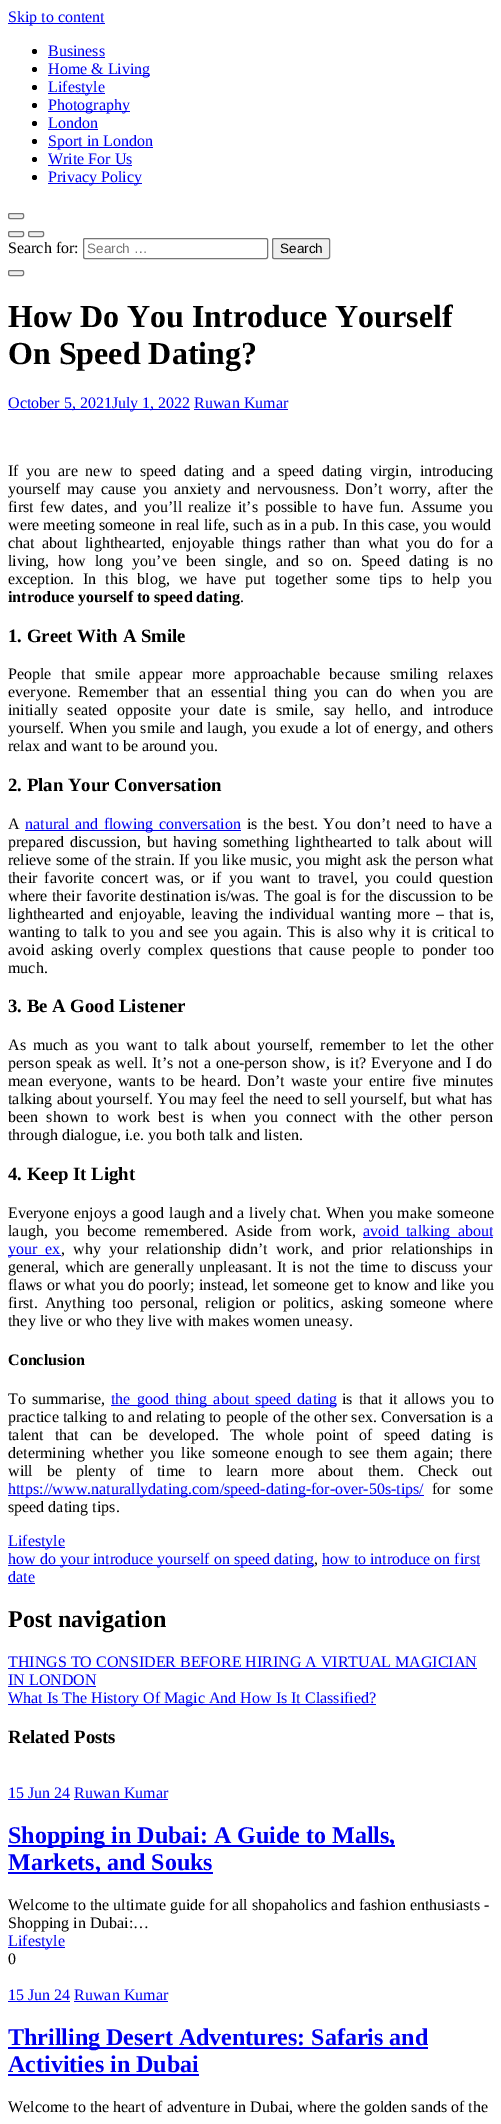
%!PS
<< /PageSize [501 2124] >> setpagedevice
/rgb { dup -16 bitshift 255 div exch dup -8 bitshift 255 and 255 div exch 255 and 255 div setrgbcolor } def
/font { [ exch dup neg 0 0 3 -1 roll 0 0 ] selectfont } def
/text { moveto show } def
/circle { newpath 0 360 arc closepath } def
/roundrect { 5 dict begin { /r /h /w /y /x } { exch def } forall
  x r add y moveto x w add y 2 copy h add r arct x w add y h add x 1 index r arct
  x y h add x y r arct x y 2 copy exch w add exch r arct closepath end } def
0 2124 translate 1 -1 scale
4 setmiterlimit
/s1 { /LiberationSerif-Regular 16 font 16#0000EE rgb } def
/s2 { /LiberationSerif-Regular 16 font 16#000000 rgb } def
/s3 { /LiberationSans-Regular 13.5 font 16#757575 rgb } def
/s4 { /LiberationSans-Regular 13.5 font 16#000000 rgb } def
/s5 { /LiberationSerif-Bold 32 font 16#000000 rgb } def
/s6 { /LiberationSerif-Bold 16 font 16#000000 rgb } def
/s7 { /LiberationSerif-Bold 18.75 font 16#000000 rgb } def
/s8 { /LiberationSerif-Bold 24 font 16#000000 rgb } def
/s9 { /LiberationSerif-Bold 24 font 16#0000EE rgb } def
16#FFFFFF rgb
0 0 501 2124 rectfill
16#0000EE rgb
8 23 97 1 rectfill
s1
(Skip to content) 8 22 text
16#000000 rgb
34.5 51.5 2.5 circle fill
s1
(Business) 48 56 text
48 57 57 1 rectfill
16#000000 rgb
34.5 69.5 2.5 circle fill
16#0000EE rgb
48 75 102 1 rectfill
(Home & Living) 48 74 text
16#000000 rgb
34.5 87.5 2.5 circle fill
16#0000EE rgb
48 93 57 1 rectfill
(Lifestyle) 48 92 text
16#000000 rgb
34.5 105.5 2.5 circle fill
16#0000EE rgb
48 111 82 1 rectfill
(Photography) 48 110 text
16#000000 rgb
34.5 123.5 2.5 circle fill
s1
(London) 48 128 text
48 129 50 1 rectfill
16#000000 rgb
34.5 141.5 2.5 circle fill
16#0000EE rgb
48 147 105 1 rectfill
(Sport in London) 48 146 text
16#000000 rgb
34.5 159.5 2.5 circle fill
s1
(Write For Us) 48 164 text
48 165 84 1 rectfill
16#000000 rgb
34.5 177.5 2.5 circle fill
16#0000EE rgb
48 183 94 1 rectfill
(Privacy Policy) 48 182 text
16#EFEFEF rgb
8.5 213.5 15 5 1.5 roundrect gsave fill grestore
16#767676 rgb
stroke
16#EFEFEF rgb
8.5 231.5 15 5 1.5 roundrect gsave fill grestore
16#767676 rgb
stroke
16#EFEFEF rgb
28.5 231.5 15 5 1.5 roundrect gsave fill grestore
16#767676 rgb
stroke
s2
(Search for:) 8 253 text
16#767676 rgb
83.5 238.5 184 20 1.5 roundrect stroke
s3
(Search …) 87 253 text
16#EFEFEF rgb
272.5 238.5 57 20 1.5 roundrect gsave fill grestore
16#767676 rgb
stroke
s4
(Search) 280 253 text
16#EFEFEF rgb
8.5 270.5 15 5 1.5 roundrect gsave fill grestore
16#767676 rgb
stroke
s5
(How Do You Introduce Yourself) 8 327 text
(On Speed Dating?) 8 364 text
16#0000EE rgb
8 409 182 1 rectfill
s1
(October 5, 2021July 1, 2022 Ruwan Kumar) 8 408 text
194 409 94 1 rectfill
16#000000 rgb
8 476 moveto 3.75 0 32 (If you are new to speed dating and a speed dating virgin, introducing) widthshow
8 494 moveto 2.5 0 32 (yourself may cause you anxiety and nervousness. Don’t worry, after the) widthshow
8 512 moveto 2.5 0 32 (first few dates, and you’ll realize it’s possible to have fun. Assume you) widthshow
(were meeting someone in real life, such as in a pub. In this case, you would) 8 530 text
8 548 moveto 3.25 0 32 (chat about lighthearted, enjoyable things rather than what you do for a) widthshow
8 566 moveto 5 0 32 (living, how long you’ve been single, and so on. Speed dating is no) widthshow
8 584 moveto 4.9 0 32 (exception. In this blog, we have put together some tips to help you) widthshow
s6
(introduce yourself to speed dating) 8 602 text
s2
(.) 240 602 text
s7
(1. Greet With A Smile) 8 642 text
/LiberationSerif-Regular 16 font
8 679 moveto 5.75 0 32 (People that smile appear more approachable because smiling relaxes) widthshow
8 697 moveto 3.75 0 32 (everyone. Remember that an essential thing you can do when you are) widthshow
8 715 moveto 5.5 0 32 (initially seated opposite your date is smile, say hello, and introduce) widthshow
8 733 moveto 0.6 0 32 (yourself. When you smile and laugh, you exude a lot of energy, and others) widthshow
(relax and want to be around you.) 8 751 text
s7
(2. Plan Your Conversation) 8 791 text
s2
(A) 8 829 text
16#0000EE rgb
25 830 216 1 rectfill
25 829 moveto 1.5 0 32 (natural and flowing conversation) widthshow
16#000000 rgb
247 829 moveto 1.5 0 32 (is the best. You don’t need to have a) widthshow
8 847 moveto 2 0 32 (prepared discussion, but having something lighthearted to talk about will) widthshow
8 865 moveto 0.2 0 32 (relieve some of the strain. If you like music, you might ask the person what) widthshow
8 883 moveto 3.1 0 32 (their favorite concert was, or if you want to travel, you could question) widthshow
8 901 moveto 0.75 0 32 (where their favorite destination is/was. The goal is for the discussion to be) widthshow
8 919 moveto 1.75 0 32 (lighthearted and enjoyable, leaving the individual wanting more – that is,) widthshow
8 937 moveto 1.4 0 32 (wanting to talk to you and see you again. This is also why it is critical to) widthshow
8 955 moveto 3.25 0 32 (avoid asking overly complex questions that cause people to ponder too) widthshow
(much.) 8 973 text
s7
(3. Be A Good Listener) 8 1012 text
/LiberationSerif-Regular 16 font
8 1050 moveto 2.9 0 32 (As much as you want to talk about yourself, remember to let the other) widthshow
8 1068 moveto 1 0 32 (person speak as well. It’s not a one-person show, is it? Everyone and I do) widthshow
8 1086 moveto 2.25 0 32 (mean everyone, wants to be heard. Don’t waste your entire five minutes) widthshow
8 1104 moveto 0.25 0 32 (talking about yourself. You may feel the need to sell yourself, but what has) widthshow
8 1122 moveto 4.25 0 32 (been shown to work best is when you connect with the other person) widthshow
(through dialogue, i.e. you both talk and listen.) 8 1140 text
s7
(4. Keep It Light) 8 1180 text
/LiberationSerif-Regular 16 font
8 1218 moveto 0.75 0 32 (Everyone enjoys a good laugh and a lively chat. When you make someone) widthshow
8 1236 moveto 3.5 0 32 (laugh, you become remembered. Aside from work,) widthshow
16#0000EE rgb
363 1237 130 1 rectfill
363 1236 moveto 3.5 0 32 (avoid talking about) widthshow
8 1255 53 1 rectfill
8 1254 moveto 4 0 32 (your ex) widthshow
16#000000 rgb
61 1254 moveto 4 0 32 (, why your relationship didn’t work, and prior relationships in) widthshow
8 1272 moveto 1.5 0 32 (general, which are generally unpleasant. It is not the time to discuss your) widthshow
8 1290 moveto 0.25 0 32 (flaws or what you do poorly; instead, let someone get to know and like you) widthshow
8 1308 moveto 3.1 0 32 (first. Anything too personal, religion or politics, asking someone where) widthshow
(they live or who they live with makes women uneasy.) 8 1326 text
s6
(Conclusion) 8 1365 text
/LiberationSerif-Regular 16 font
8 1404 moveto 2 0 32 (To summarise,) widthshow
16#0000EE rgb
111 1405 225 1 rectfill
111 1404 moveto 2 0 32 (the good thing about speed dating) widthshow
16#000000 rgb
342 1404 moveto 2 0 32 (is that it allows you to) widthshow
8 1422 moveto 0.3 0 32 (practice talking to and relating to people of the other sex. Conversation is a) widthshow
8 1440 moveto 7 0 32 (talent that can be developed. The whole point of speed dating is) widthshow
8 1458 moveto 2.75 0 32 (determining whether you like someone enough to see them again; there) widthshow
8 1476 moveto 9.9 0 32 (will be plenty of time to learn more about them. Check out) widthshow
16#0000EE rgb
8 1495 416 1 rectfill
(https://www.naturallydating.com/speed-dating-for-over-50s-tips/) 8 1494 text
16#000000 rgb
432 1494 moveto 4.25 0 32 (for some) widthshow
(speed dating tips.) 8 1512 text
16#0000EE rgb
8 1547 57 1 rectfill
(Lifestyle) 8 1546 text
8 1565 306 1 rectfill
(how do your introduce yourself on speed dating) 8 1564 text
s2
(,) 314 1564 text
s1
(how to introduce on first) 322 1564 text
322 1565 158 1 rectfill
(date) 8 1582 text
8 1583 27 1 rectfill
s8
(Post navigation) 8 1627 text
s1
(THINGS TO CONSIDER BEFORE HIRING A VIRTUAL MAGICIAN) 8 1667 text
8 1668 469 1 rectfill
(IN LONDON) 8 1685 text
8 1686 88 1 rectfill
8 1704 368 1 rectfill
(What Is The History Of Magic And How Is It Classified?) 8 1703 text
s7
(Related Posts) 8 1743 text
s1
(15 Jun 24 Ruwan Kumar) 8 1798 text
8 1799 62 1 rectfill
74 1799 94 1 rectfill
8 1845 387 2 rectfill
s9
(Shopping in Dubai: A Guide to Malls,) 8 1843 text
8 1872 205 2 rectfill
(Markets, and Souks) 8 1870 text
s2
(Welcome to the ultimate guide for all shopaholics and fashion enthusiasts -) 8 1910 text
(Shopping in Dubai:…) 8 1928 text
16#0000EE rgb
8 1947 57 1 rectfill
(Lifestyle) 8 1946 text
s2
(0) 8 1964 text
s1
(15 Jun 24 Ruwan Kumar) 8 2000 text
8 2001 62 1 rectfill
74 2001 94 1 rectfill
8 2047 420 2 rectfill
s9
(Thrilling Desert Adventures: Safaris and) 8 2045 text
(Activities in Dubai) 8 2072 text
8 2074 191 2 rectfill
s2
(Welcome to the heart of adventure in Dubai, where the golden sands of the) 8 2112 text
showpage
